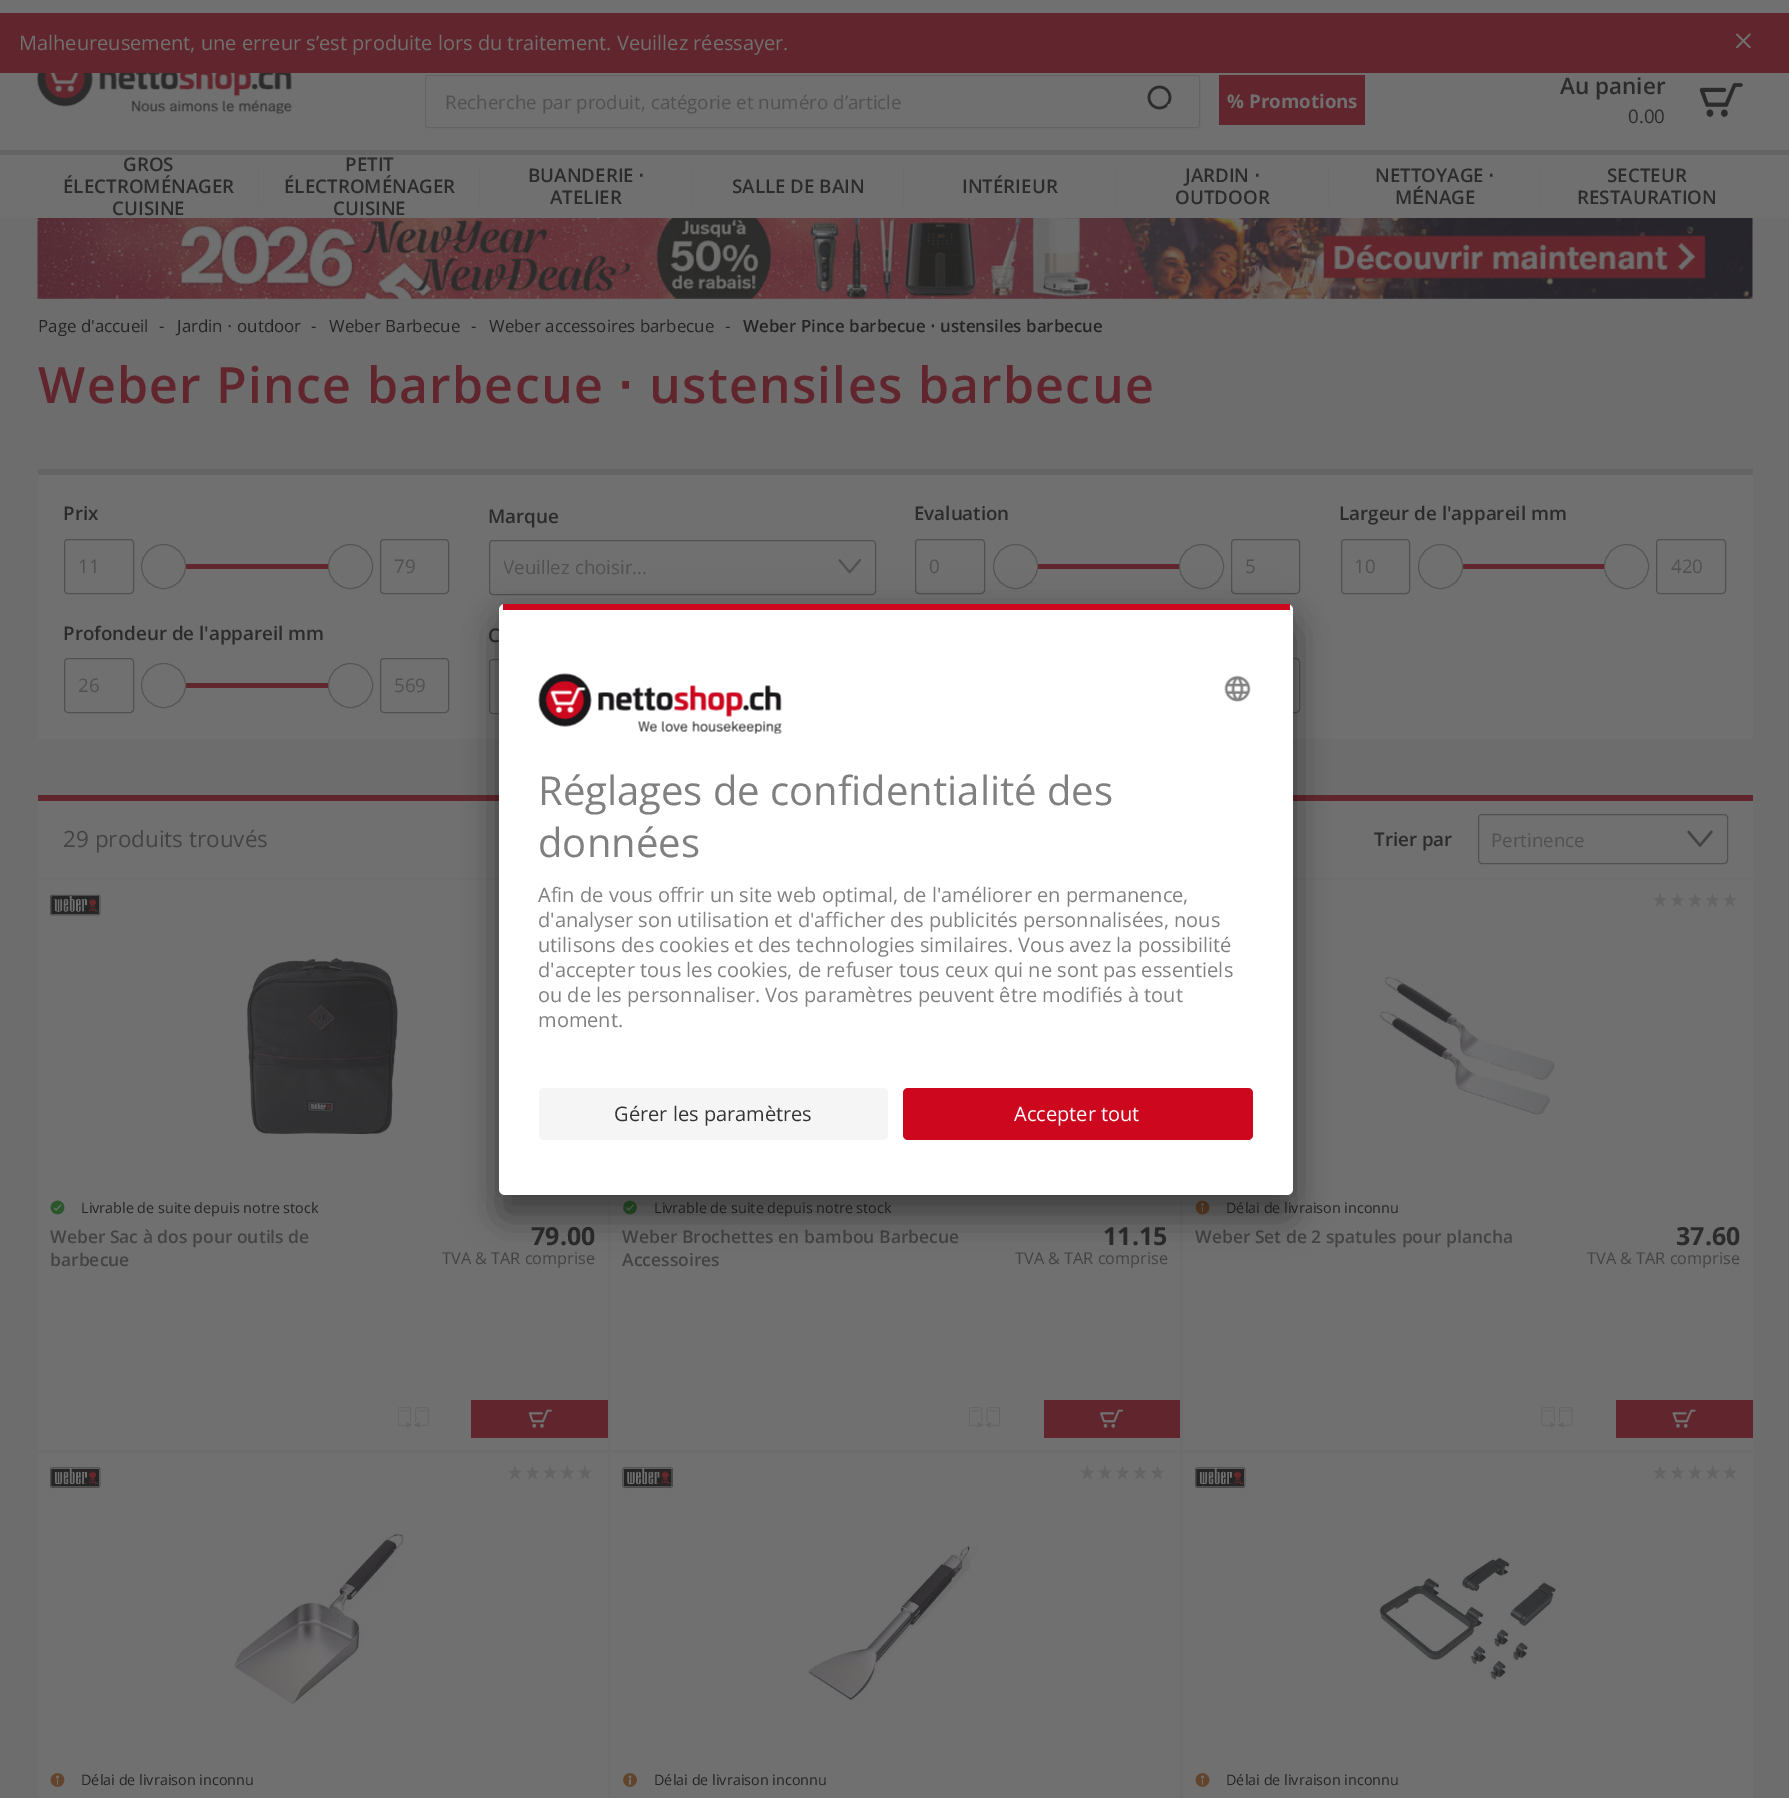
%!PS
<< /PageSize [1789 1798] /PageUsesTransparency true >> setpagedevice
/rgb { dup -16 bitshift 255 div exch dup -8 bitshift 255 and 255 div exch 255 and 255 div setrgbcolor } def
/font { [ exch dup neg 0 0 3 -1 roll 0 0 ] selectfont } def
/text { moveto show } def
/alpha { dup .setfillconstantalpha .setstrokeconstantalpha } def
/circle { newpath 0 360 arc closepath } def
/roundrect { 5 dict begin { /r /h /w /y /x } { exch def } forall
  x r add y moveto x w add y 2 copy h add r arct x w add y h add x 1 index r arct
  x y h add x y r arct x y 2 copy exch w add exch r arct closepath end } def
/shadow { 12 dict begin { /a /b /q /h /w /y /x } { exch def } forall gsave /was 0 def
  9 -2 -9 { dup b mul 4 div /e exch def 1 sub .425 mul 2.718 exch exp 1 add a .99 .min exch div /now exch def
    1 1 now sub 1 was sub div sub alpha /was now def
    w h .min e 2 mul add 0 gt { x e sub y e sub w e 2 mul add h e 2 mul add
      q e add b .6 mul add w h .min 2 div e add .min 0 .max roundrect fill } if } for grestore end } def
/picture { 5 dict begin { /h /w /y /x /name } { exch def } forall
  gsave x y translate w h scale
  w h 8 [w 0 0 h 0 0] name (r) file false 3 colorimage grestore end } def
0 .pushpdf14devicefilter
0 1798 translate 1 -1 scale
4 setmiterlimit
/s1 { /OpenSans-Regular 20 font 16#707070 rgb } def
/s2 { /OpenSans-Regular 16.9 font 16#242424 rgb } def
/s3 { /DejaVuSans-Regular 16.9 font 16#242424 rgb } def
/s4 { /OpenSans-SemiBold 16.9 font 16#242424 rgb } def
/s5 { /DejaVuSans-Bold 16.9 font 16#242424 rgb } def
/s6 { /OpenSans-SemiBold 18.75 font 16#2C2B2C rgb } def
/s7 { /OpenSans-Regular 18.75 font 16#515151 rgb } def
/s8 { /OpenSans-Regular 22.5 font 16#434343 rgb } def
/s9 { /OpenSans-Regular 14.4 font 16#242424 rgb } def
/s10 { /OpenSans-SemiBold 17.5 font 16#434343 rgb } def
/s11 { /OpenSans-Bold 25 font 16#2C2B2C rgb } def
/s12 { /OpenSans-Regular 16.25 font 16#434343 rgb } def
/s13 { /OpenSans-Bold 18.75 font 16#707070 rgb } def
/s14 { /OpenSans-SemiBold 22.5 font 16#2C2B2C rgb } def
/s15 { /OpenSans-Regular 18.75 font 16#2C2B2C rgb } def
/s16 { /DejaVuSans-Bold 18.75 font 16#2C2B2C rgb } def
/s17 { /OpenSans-Regular 40 font 16#808080 rgb } def
/s18 { /OpenSans-Regular 20 font 16#808080 rgb } def
/s19 { /OpenSans-Regular 20 font 16#333333 rgb } def
/s20 { /OpenSans-Regular 20 font 16#FFFFFF rgb } def
16#6D6D6D rgb
0 0 1789 1798 rectfill
16#61262D rgb
0 13 1789 60 rectfill
16#707070 rgb
0 0 1789 13 rectfill
s1
(Malheureusement, une erreur s’est produite lors du traitement. Veuillez réessayer.) 19 50 text
(pic1.raw) 1736 33 15 16 picture
(pic2.raw) 37 218 1716 81 picture
s2
(Page d'accueil) 38 332 text
(-) 159 332 text
(Jardin) 177 332 text
s3
(⋅) 227 332 text
s2
(outdoor) 237 332 text
(-) 311 332 text
(Weber Barbecue) 329 332 text
(-) 471 332 text
(Weber accessoires barbecue) 489 332 text
(-) 725 332 text
s4
(Weber Pince barbecue) 743 332 text
s5
(⋅) 930 332 text
s4
(ustensiles barbecue) 940 332 text
/OpenSans-SemiBold 50 font
16#61262D rgb
38 403 moveto 1.25 0 (Weber Pince barbecue) ashow
/DejaVuSans-Bold 50 font
617 403 moveto 1.25 0 (⋅) ashow
/OpenSans-SemiBold 50 font
649 403 moveto 1.25 0 (ustensiles barbecue) ashow
16#707070 rgb
38 475 1715 264 rectfill
16#646464 rgb
38 469 1715 6 rectfill
s6
(Prix) 63 520 text
16#515151 rgb
64.5 539.5 69 54 3.5 roundrect stroke
s7
(11) 78 573 text
16#61262D rgb
143.5 564 moveto 328 564 lineto 328 569 lineto 143.5 569 lineto 142 569 141 568 141 566.5 curveto 141 565 142 564 143.5 564 curveto closepath fill
16#707070 rgb
163.5 566.5 22 circle gsave fill grestore
16#555555 rgb
stroke
350.5 566.5 22 circle stroke
16#515151 rgb
380.5 539.5 68 54 3.5 roundrect stroke
(79) 394 573 text
s6
(Marque) 488 523 text
16#515151 rgb
489.5 540.5 386 54 3.5 roundrect stroke
gsave
504 555 320 25 rectclip
s7
(Veuillez choisir...) 503 574 text
grestore
(pic3.raw) 838 559 23 15 picture
s6
(Evaluation) 914 520 text
16#515151 rgb
915.5 539.5 69 54 3.5 roundrect stroke
s7
(0) 929 573 text
16#61262D rgb
995.5 564 moveto 1179 564 lineto 1179 569 lineto 995.5 569 lineto 994 569 993 568 993 566.5 curveto 993 565 994 564 995.5 564 curveto closepath fill
16#707070 rgb
1015.5 566.5 22 circle gsave fill grestore
16#555555 rgb
stroke
1201.5 566.5 22 circle stroke
16#515151 rgb
1231.5 539.5 68 54 3.5 roundrect stroke
(5) 1245 573 text
s6
(Largeur de l'appareil mm) 1339 520 text
16#515151 rgb
1341.5 539.5 68 54 3.5 roundrect stroke
s7
(10) 1354 573 text
16#61262D rgb
1420.5 564 moveto 1604 564 lineto 1604 569 lineto 1420.5 569 lineto 1419 569 1418 568 1418 566.5 curveto 1418 565 1419 564 1420.5 564 curveto closepath fill
16#707070 rgb
1440.5 566.5 22 circle gsave fill grestore
16#555555 rgb
stroke
1626.5 566.5 22 circle stroke
16#515151 rgb
1656.5 539.5 69 54 3.5 roundrect stroke
(420) 1671 573 text
s6
(Profondeur de l'appareil mm) 63 640 text
16#515151 rgb
64.5 658.5 69 54 3.5 roundrect stroke
s7
(26) 78 692 text
16#61262D rgb
143.5 683 moveto 328 683 lineto 328 688 lineto 143.5 688 lineto 142 688 141 687 141 685.5 curveto 141 684 142 683 143.5 683 curveto closepath fill
16#707070 rgb
163.5 685.5 22 circle gsave fill grestore
16#555555 rgb
stroke
350.5 685.5 22 circle stroke
16#515151 rgb
380.5 658.5 68 54 3.5 roundrect stroke
(569) 394 692 text
s6
(C) 488 642 text
16#515151 rgb
489.5 659.5 386 54 3.5 roundrect stroke
1231.5 658.5 68 54 3.5 roundrect stroke
16#707070 rgb
38 801 1715 77 rectfill
16#61262D rgb
38 795 1715 6 rectfill
s8
(29 produits trouvés) 63 847 text
s6
(Trier par) 1374 846 text
(pic4.raw) 1687 830 26 17 picture
16#515151 rgb
1478.5 814.5 249 49 3.5 roundrect stroke
s7
(Pertinence) 1491 847 text
16#707070 rgb
38 880 570 570 rectfill
(pic5.raw) 50 892 51 25 picture
(pic6.raw) 245 955 154 181 picture
(pic7.raw) 50 1200 15 15 picture
s9
(Livrable de suite depuis notre stock) 81 1213 text
s10
(Weber Sac à dos pour outils de) 50 1243 text
(barbecue) 50 1266 text
s11
(79.00) 531 1245 text
s12
(TVA & TAR comprise) 442 1264 text
(pic8.raw) 398 1407 31 21 picture
16#61262D rgb
471 1400 137 38 rectfill
(pic9.raw) 528 1409 24 19 picture
16#707070 rgb
610 1195 570 255 rectfill
(pic10.raw) 623 1200 14 15 picture
s9
(Livrable de suite depuis notre stock) 654 1213 text
s10
(Weber Brochettes en bambou Barbecue) 622 1243 text
(Accessoires) 622 1266 text
s11
(11.15) 1103 1245 text
s12
(TVA & TAR comprise) 1015 1264 text
(pic11.raw) 969 1407 31 21 picture
16#61262D rgb
1044 1400 136 38 rectfill
(pic12.raw) 1100 1409 24 19 picture
16#707070 rgb
1183 880 570 570 rectfill
(pic13.raw) 1653 893 14 14 picture
(pic14.raw) 1670 893 15 14 picture
(pic13.raw) 1688 893 14 14 picture
(pic14.raw) 1705 893 15 14 picture
(pic13.raw) 1723 893 14 14 picture
(pic15.raw) 1375 977 182 141 picture
(pic16.raw) 1195 1200 15 15 picture
s9
(Délai de livraison inconnu) 1226 1213 text
s10
(Weber Set de 2 spatules pour plancha) 1195 1243 text
s11
(37.60) 1676 1245 text
s12
(TVA & TAR comprise) 1587 1264 text
(pic17.raw) 1541 1407 32 21 picture
16#61262D rgb
1616 1400 137 38 rectfill
(pic18.raw) 1672 1409 24 19 picture
16#707070 rgb
38 1453 570 345 rectfill
(pic19.raw) 50 1465 51 25 picture
(pic20.raw) 508 1465 14 15 picture
(pic21.raw) 525 1465 15 15 picture
(pic20.raw) 543 1465 14 15 picture
(pic21.raw) 560 1465 15 15 picture
(pic20.raw) 578 1465 14 15 picture
(pic22.raw) 234 1532 172 173 picture
(pic23.raw) 50 1773 15 14 picture
s9
(Délai de livraison inconnu) 81 1785 text
16#707070 rgb
610 1453 570 345 rectfill
(pic24.raw) 622 1465 51 25 picture
(pic21.raw) 1080 1465 15 15 picture
(pic20.raw) 1098 1465 14 15 picture
(pic21.raw) 1115 1465 15 15 picture
(pic20.raw) 1133 1465 14 15 picture
(pic21.raw) 1150 1465 15 15 picture
(pic25.raw) 808 1545 171 156 picture
(pic26.raw) 623 1773 14 14 picture
s9
(Délai de livraison inconnu) 654 1785 text
16#707070 rgb
1183 1453 570 345 rectfill
(pic19.raw) 1195 1465 51 25 picture
(pic20.raw) 1653 1465 14 15 picture
(pic21.raw) 1670 1465 15 15 picture
(pic20.raw) 1688 1465 14 15 picture
(pic21.raw) 1705 1465 15 15 picture
(pic20.raw) 1723 1465 14 15 picture
(pic27.raw) 1377 1556 180 129 picture
(pic23.raw) 1195 1773 15 14 picture
s9
(Délai de livraison inconnu) 1226 1785 text
16#707070 rgb
0 73 1789 145 rectfill
(pic28.raw) 37 73 255 42 picture
16#646464 rgb
425.5 75.5 774 52 2 roundrect stroke
s7
(Recherche par produit, catégorie et numéro d’article) 445 109 text
(pic29.raw) 1147 85 25 25 picture
16#61262D rgb
1219 75 146 50 rectfill
s13
(% Promotions) 1227 108 text
s14
(Au panier) 1560 94 text
s15
(0.00) 1628 123 text
(pic30.raw) 1699 83 44 34 picture
16#646464 rgb
0 150 1789 5 rectfill
s6
(GROS) 123 171 text
(ÉLECTROMÉNAGER) 63 193 text
16#6D6D6D rgb
258 168 1 37 rectfill
s6
(CUISINE) 112 215 text
(PETIT) 345 171 text
(ÉLECTROMÉNAGER) 284 193 text
16#6D6D6D rgb
479 168 1 37 rectfill
s6
(CUISINE) 333 215 text
(BUANDERIE) 528 182 text
s16
(⋅) 638 182 text
16#6D6D6D rgb
691 168 1 37 rectfill
s6
(ATELIER) 550 204 text
(SALLE DE BAIN) 732 193 text
16#6D6D6D rgb
903 168 1 37 rectfill
s6
(INTÉRIEUR) 962 193 text
16#6D6D6D rgb
1115 168 1 37 rectfill
s6
(JARDIN) 1185 182 text
s16
(⋅) 1254 182 text
16#6D6D6D rgb
1328 168 1 37 rectfill
s6
(OUTDOOR) 1175 204 text
(NETTOYAGE) 1375 182 text
s16
(⋅) 1488 182 text
16#6D6D6D rgb
1539 168 1 37 rectfill
s6
(M) 1395 204 text
s16
(É) 1412 204 text
s6
(NAGE) 1424 204 text
(SECTEUR) 1607 182 text
(RESTAURATION) 1577 204 text
16#000000 rgb
499 629 794 591 6 17.5 0.3 shadow
499 610 794 591 6 16 0.22 shadow
16#FFFFFF rgb
499 604 794 591 6 roundrect fill
16#CC071E rgb
503 604 787 6 rectfill
(pic31.raw) 538 673 244 61 picture
(pic32.raw) 1224 675 27 27 picture
s17
(Réglages de confidentialité des) 538 805 text
(données) 538 857 text
s18
(Afin de vous offrir un site web optimal, de l'améliorer en permanence,) 538 902 text
(d'analyser son utilisation et d'afficher des publicités personnalisées, nous) 538 927 text
(utilisons des cookies et des technologies similaires. Vous avez la possibilité) 538 952 text
(d'accepter tous les cookies, de refuser tous ceux qui ne sont pas essentiels) 538 977 text
(ou de les personnaliser. Vos paramètres peuvent être modifiés à tout) 538 1002 text
(moment.) 538 1027 text
16#F5F5F5 rgb
539 1088 349 52 5 roundrect fill
s19
(Gérer les paramètres) 614 1121 text
16#CC071E rgb
903 1088 350 52 5 roundrect fill
s20
(Accepter tout) 1014 1121 text
.poppdf14devicefilter showpage
